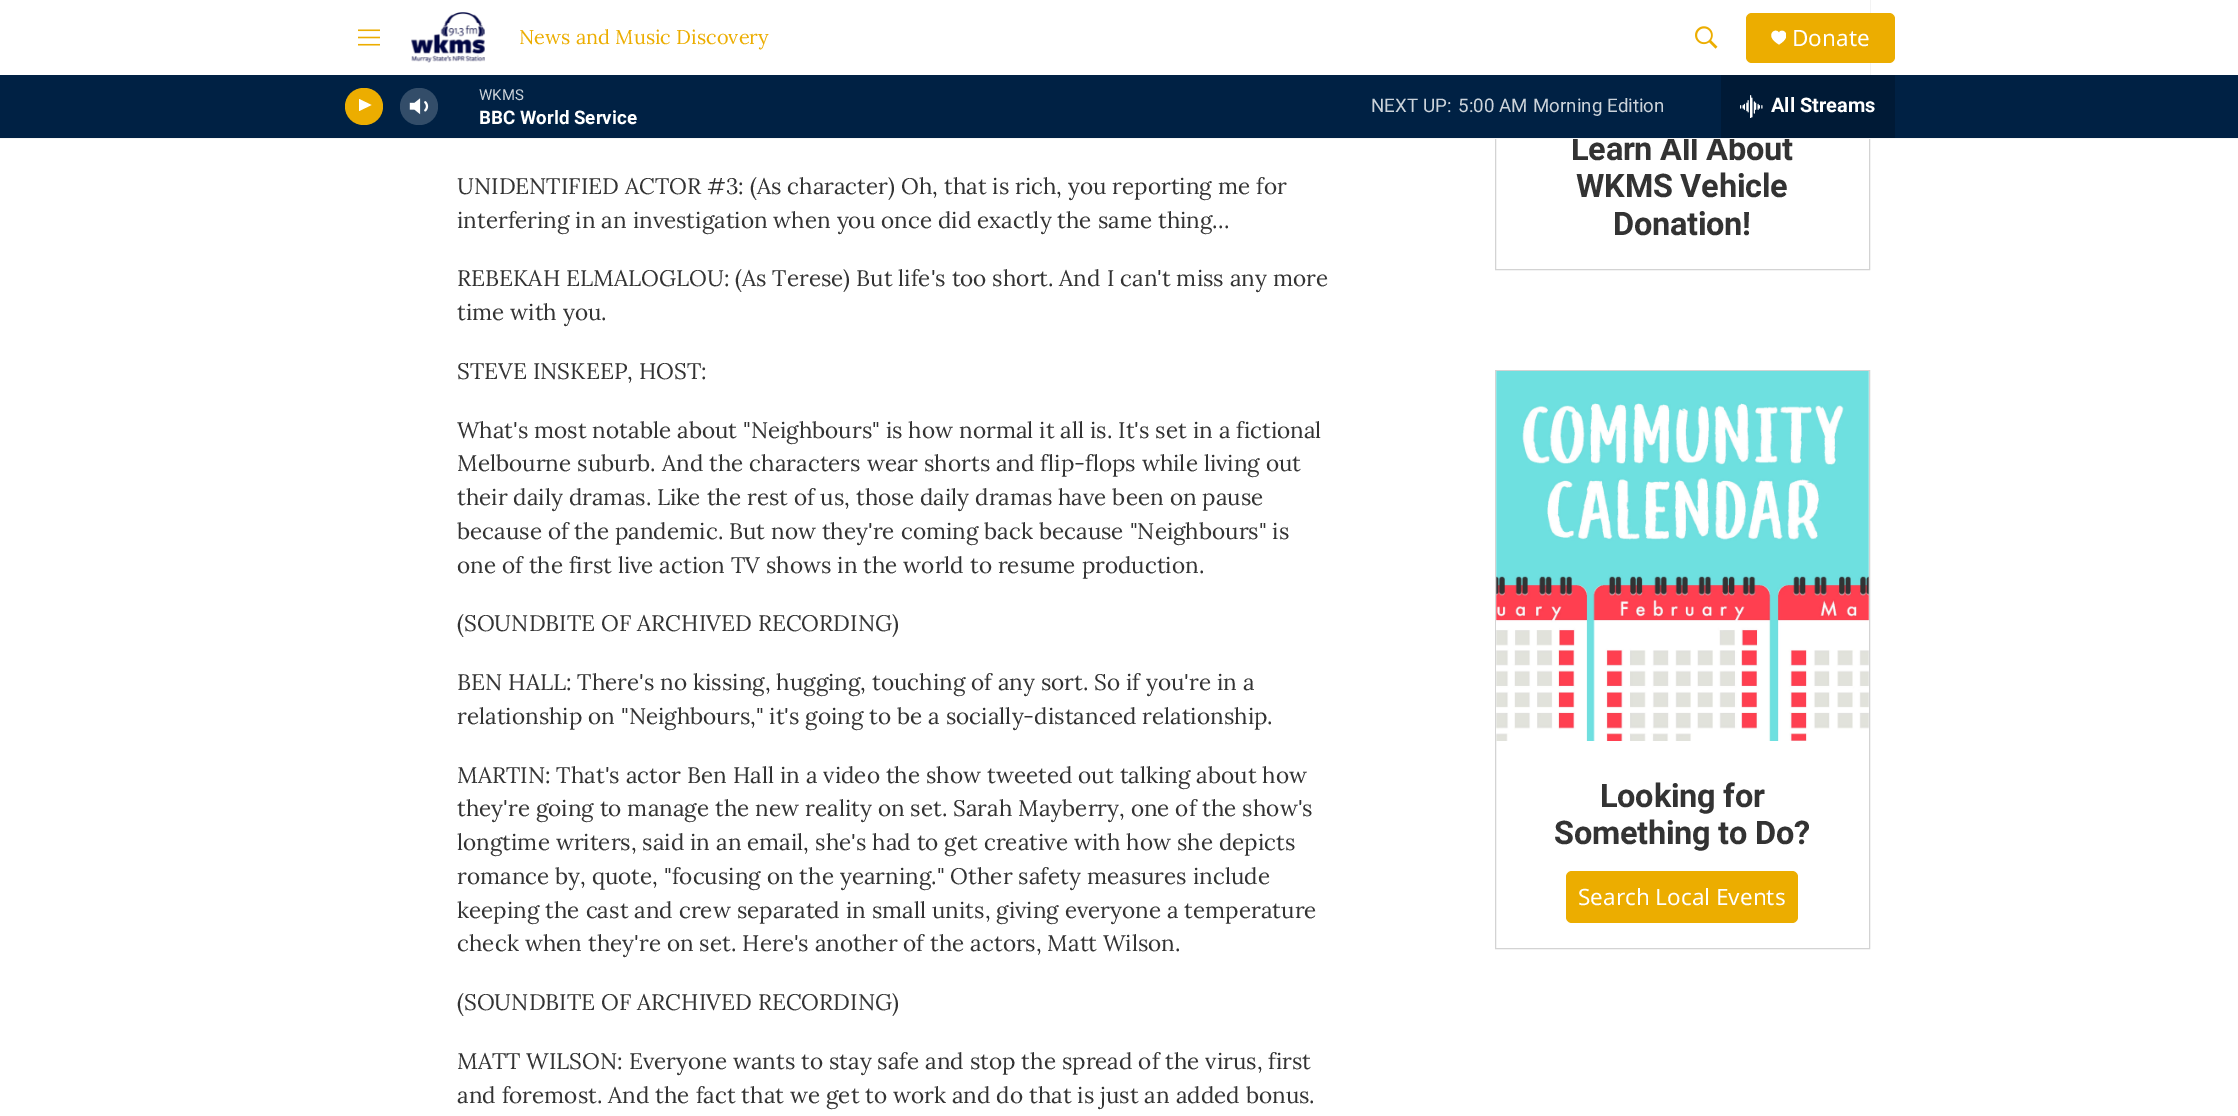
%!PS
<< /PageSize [2238 1116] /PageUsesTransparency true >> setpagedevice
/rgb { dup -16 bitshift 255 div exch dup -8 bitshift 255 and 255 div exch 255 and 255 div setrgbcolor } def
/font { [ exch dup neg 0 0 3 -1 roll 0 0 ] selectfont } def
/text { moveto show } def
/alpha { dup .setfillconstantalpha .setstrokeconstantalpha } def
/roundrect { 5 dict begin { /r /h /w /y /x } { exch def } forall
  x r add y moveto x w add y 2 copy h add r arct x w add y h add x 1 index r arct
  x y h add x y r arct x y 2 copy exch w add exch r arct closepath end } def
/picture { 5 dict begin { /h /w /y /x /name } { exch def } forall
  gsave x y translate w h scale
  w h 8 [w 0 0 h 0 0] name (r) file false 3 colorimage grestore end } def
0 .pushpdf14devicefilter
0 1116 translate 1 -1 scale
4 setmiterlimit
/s1 { /Lora-Regular 20 font 16#ECAD00 rgb } def
/s2 { /NotoSans-Regular 22.5 font 16#FFFFFF rgb } def
/s3 { /Roboto-Regular 15 font 16#CCD3DA rgb } def
/s4 { /Roboto-Bold 18.75 font 16#FFFFFF rgb } def
/s5 { /Roboto-Regular 18.75 font 16#CCD3DA rgb } def
/s6 { /Roboto-Bold 20 font 16#FFFFFF rgb } def
/s7 { /Lora-Regular 22.5 font 16#333333 rgb } def
16#FFFFFF rgb
0 0 2238 1116 rectfill
16#D3D3D3 rgb
1495.5 -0.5 374 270 rectstroke
16#FFFFFF rgb
1495 0 375 75 rectfill
/Roboto-Bold 32.5 font
16#333333 rgb
1571 160 moveto -0.25 0 (Learn All About) ashow
16#F5F5F5 rgb
0 138 2238 1 rectfill
(pic1.raw) 358 29 22 17 picture
(pic2.raw) 411 12 74 51 picture
s1
(News and Music Discovery) 519 44 text
(pic3.raw) 1695 26 23 23 picture
1746 13 149 50 6 roundrect fill
gsave
1771 30 15 15 rectclip
16#FFFFFF rgb
1779 33 moveto 1776.5 26.5 1763 35 1779 44.5 curveto 1794.5 35 1781 26.5 1779 33 curveto closepath fill
grestore
s2
(Donate) 1792 46 text
16#002144 rgb
0 75 2238 63 rectfill
16#ECAD00 rgb
345 88 38 37 18.5 roundrect fill
16#FFFFFF rgb
359 99 moveto 371.5 105 lineto 359 111 lineto closepath fill
(pic4.raw) 409 98 20 17 picture
0.2 alpha
400 88 38 37 18.5 roundrect fill
1 alpha
s3
(WKMS) 479 100 text
s4
(BBC World Service) 479 124 text
s5
(NEXT UP:) 1371 112 text
(5:00 AM) 1458 112 text
(Morning Edition) 1533 112 text
16#001A36 rgb
1721 75 174 63 rectfill
(pic5.raw) 1740 95 23 23 picture
s6
(All Streams) 1771 112 text
s7
(UNIDENTIFIED ACTOR #3: \(As character\) Oh, that is rich, you reporting me for) 457 194 text
(interfering in an investigation when you once did exactly the same thing...) 457 228 text
(REBEKAH ELMALOGLOU: \(As Terese\) But life's too short. And I can't miss any more) 457 286 text
(time with you.) 457 320 text
(STEVE INSKEEP, HOST:) 457 379 text
(What's most notable about "Neighbours" is how normal it all is. It's set in a fictional) 457 438 text
(Melbourne suburb. And the characters wear shorts and flip-flops while living out) 457 471 text
(their daily dramas. Like the rest of us, those daily dramas have been on pause) 457 505 text
(because of the pandemic. But now they're coming back because "Neighbours" is) 457 539 text
(one of the first live action TV shows in the world to resume production.) 457 573 text
(\(SOUNDBITE OF ARCHIVED RECORDING\)) 457 631 text
(BEN HALL: There's no kissing, hugging, touching of any sort. So if you're in a) 457 690 text
(relationship on "Neighbours," it's going to be a socially-distanced relationship.) 457 724 text
(MARTIN: That's actor Ben Hall in a video the show tweeted out talking about how) 457 783 text
(they're going to manage the new reality on set. Sarah Mayberry, one of the show's) 457 816 text
(longtime writers, said in an email, she's had to get creative with how she depicts) 457 850 text
(romance by, quote, "focusing on the yearning." Other safety measures include) 457 884 text
(keeping the cast and crew separated in small units, giving everyone a temperature) 457 918 text
(check when they're on set. Here's another of the actors, Matt Wilson.) 457 951 text
(\(SOUNDBITE OF ARCHIVED RECORDING\)) 457 1010 text
(MATT WILSON: Everyone wants to stay safe and stop the spread of the virus, first) 457 1069 text
(and foremost. And the fact that we get to work and do that is just an added bonus.) 457 1103 text
/Roboto-Bold 32.5 font
1576 197 moveto -0.25 0 (WKMS Vehicle) ashow
1613 235 moveto -0.25 0 (Donation!) ashow
16#D3D3D3 rgb
1495.5 370.5 374 578 rectstroke
(pic6.raw) 1496 371 373 370 picture
16#333333 rgb
1600 807 moveto -0.25 0 (Looking for) ashow
1554 844 moveto -0.25 0 (Something to Do?) ashow
16#ECAD00 rgb
1566 871 232 52 6 roundrect fill
s2
(Search Local Events) 1578 905 text
.poppdf14devicefilter showpage
